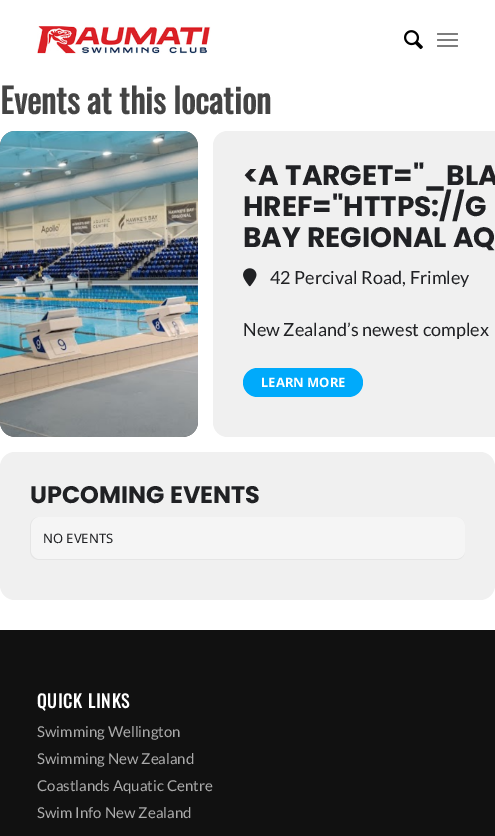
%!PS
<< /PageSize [495 836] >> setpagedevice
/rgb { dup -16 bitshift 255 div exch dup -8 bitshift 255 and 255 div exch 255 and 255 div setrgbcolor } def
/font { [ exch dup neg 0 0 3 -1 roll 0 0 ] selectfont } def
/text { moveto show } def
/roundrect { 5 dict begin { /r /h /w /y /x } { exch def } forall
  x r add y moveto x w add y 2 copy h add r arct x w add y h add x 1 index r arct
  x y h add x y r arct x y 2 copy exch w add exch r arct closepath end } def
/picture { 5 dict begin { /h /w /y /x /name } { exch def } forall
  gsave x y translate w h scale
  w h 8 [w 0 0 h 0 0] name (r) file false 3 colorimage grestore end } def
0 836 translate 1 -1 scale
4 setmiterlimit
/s1 { /Oswald-Bold 34 font 16#444444 rgb } def
/s2 { /Poppins-Bold 28 font 16#202124 rgb } def
/s3 { /Lato-Regular 18 font 16#202124 rgb } def
/s4 { /NotoSans-Bold 13 font 16#FFFFFF rgb } def
/s5 { /Poppins-Bold 24 font 16#202124 rgb } def
/s6 { /NotoSans-Regular 13 font 16#202124 rgb } def
/s7 { /Lato-Regular 15 font 16#AAAAAA rgb } def
16#FFFFFF rgb
0 0 495 836 rectfill
(pic1.raw) 37 26 174 28 picture
(pic2.raw) 404 30 19 20 picture
16#7D7D7D rgb
437 39 21 2 1 roundrect fill
437 33 21 2 1 roundrect fill
437 45 21 2 1 roundrect fill
s1
(Events at this location) 0 114 text
16#616161 rgb
0 131 198 306 15 roundrect fill
(pic3.raw) 0 131 198 306 picture
16#F0F0F0 rgb
228 131 moveto 495 131 lineto 495 437 lineto 228 437 lineto 219.5 437 213 430.5 213 422 curveto 213 146 lineto 213 137.5 219.5 131 228 131 curveto closepath fill
s2
(<A TARGET="_BLA) 243 185 text
(HREF="HTTPS://G) 243 216 text
(BAY REGIONAL AQ) 243 247 text
(pic4.raw) 243 268 14 19 picture
s3
(42 Percival Road, Frimley) 270 284 text
(New Zealand’s newest complex) 243 336 text
16#00AAFB rgb
243 368 120 29 14.5 roundrect fill
s4
(LEARN MORE) 261 387 text
16#F0F0F0 rgb
0 452 495 148 15 roundrect fill
s5
(UPCOMING EVENTS) 30 503 text
16#E5E5E5 rgb
40 517 moveto 455 517 lineto 461 517 465 521 465 527 curveto 465 550 lineto 465 556 461 560 455 560 curveto 40 560 lineto 34 560 30 556 30 550 curveto 30 527 lineto 30 521 34 517 40 517 curveto closepath 40 517 moveto 455 517 lineto 461 517 465 521 465 527 curveto 465 550 lineto 465 555 461 559 455 559 curveto 40 559 lineto 35 559 31 555 31 550 curveto 31 527 lineto 31 521 35 517 40 517 curveto closepath eofill
16#F5F5F5 rgb
40 517 moveto 35 517 31 521 31 527 curveto 31 550 lineto 31 555 35 559 40 559 curveto 455 559 lineto 461 559 465 555 465 550 curveto 465 527 lineto 465 521 461 517 455 517 curveto closepath fill
s6
(NO EVENTS) 43 543 text
16#111111 rgb
0 630 495 206 rectfill
/Oswald-Bold 17.5 font
16#FFFFFF rgb
37 708 moveto 1 0 (QUICK LINKS) ashow
s7
(Swimming Wellington) 37 737 text
(Swimming New Zealand) 37 764 text
(Coastlands Aquatic Centre) 37 791 text
(Swim Info New Zealand) 37 818 text
showpage
